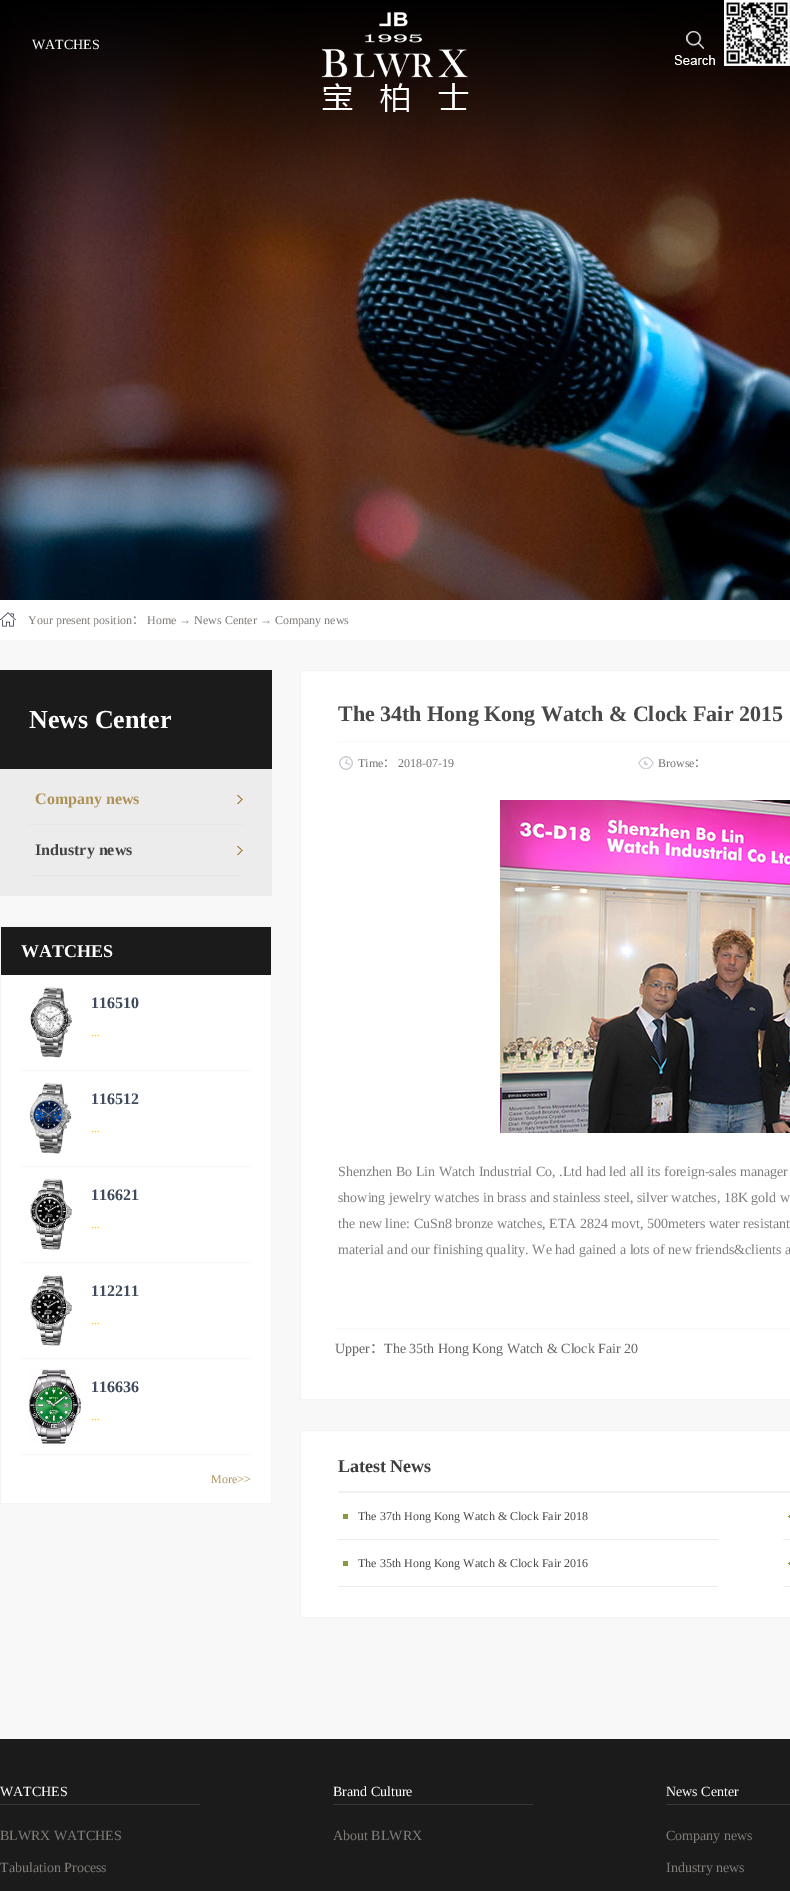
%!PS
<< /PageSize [790 1891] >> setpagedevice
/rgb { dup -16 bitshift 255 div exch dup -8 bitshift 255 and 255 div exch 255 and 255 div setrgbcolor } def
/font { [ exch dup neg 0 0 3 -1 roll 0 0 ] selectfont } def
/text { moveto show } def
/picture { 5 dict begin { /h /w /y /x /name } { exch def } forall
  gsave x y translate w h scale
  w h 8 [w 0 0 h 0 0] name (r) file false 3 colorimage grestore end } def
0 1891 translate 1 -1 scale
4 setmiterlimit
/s1 { /LiberationSerif-Regular 14 font 16#FFFFFF rgb } def
/s2 { /LiberationSerif-Regular 12 font 16#7F7C79 rgb } def
/s3 { /NotoSansCJKSC-Regular 12 font 16#7F7C79 rgb } def
/s4 { /LiberationSerif-Bold 26 font 16#FFFFFF rgb } def
/s5 { /LiberationSerif-Bold 16 font 16#AE9358 rgb } def
/s6 { /LiberationSerif-Bold 16 font 16#434343 rgb } def
/s7 { /LiberationSerif-Bold 18 font 16#FFFFFF rgb } def
/s8 { /LiberationSerif-Bold 16 font 16#3F4B5C rgb } def
/s9 { /LiberationSerif-Regular 12 font 16#F1CC1F rgb } def
/s10 { /LiberationSerif-Regular 12 font 16#AE9358 rgb } def
/s11 { /LiberationSerif-Bold 22 font 16#484849 rgb } def
/s12 { /LiberationSerif-Regular 12 font 16#737373 rgb } def
/s13 { /NotoSansCJKSC-Regular 12 font 16#737373 rgb } def
/s14 { /LiberationSerif-Regular 14 font 16#7F7F7F rgb } def
/s15 { /LiberationSerif-Regular 14 font 16#666666 rgb } def
/s16 { /NotoSansCJKSC-Regular 14 font 16#666666 rgb } def
/s17 { /LiberationSerif-Bold 18 font 16#3D3E3D rgb } def
/s18 { /LiberationSerif-Regular 12 font 16#484849 rgb } def
/s19 { /LiberationSerif-Regular 14 font 16#7F7C79 rgb } def
16#FFFFFF rgb
0 0 790 1891 rectfill
(pic1.raw) 0 0 790 600 picture
s1
(WATCHES) 32 49 text
(pic2.raw) 322 12 147 100 picture
(pic3.raw) 675 31 40 34 picture
(pic4.raw) 724 0 66 66 picture
16#F8F8F8 rgb
0 640 790 1099 rectfill
(pic5.raw) 0 612 16 15 picture
s2
(Your present position) 28 624 text
s3
(：) 132 624 text
s2
(Home → News Center → Company news) 147 624 text
16#1B1B1B rgb
0 670 272 99 rectfill
s4
(News Center) 29 728 text
16#ECECEC rgb
0 769 272 127 rectfill
(pic6.raw) 237 795 6 9 picture
16#E6E6E6 rgb
29 824 214 1 rectfill
s5
(Company news) 35 804 text
(pic6.raw) 237 846 6 9 picture
16#E6E6E6 rgb
29 875 214 1 rectfill
s6
(Industry news) 35 855 text
16#FFFFFF rgb
1 975 270 528 rectfill
16#F5F5F5 rgb
0.5 926.5 271 577 rectstroke
16#1B1B1B rgb
1 927 270 48 rectfill
s7
(WATCHES) 21 957 text
16#F7F7F7 rgb
21 1070 230 1 rectfill
(pic7.raw) 30 987 42 71 picture
s8
(116510) 91 1008 text
s9
(...) 91 1036 text
16#F7F7F7 rgb
21 1166 230 1 rectfill
(pic8.raw) 29 1083 43 71 picture
s8
(116512) 91 1104 text
s9
(...) 91 1132 text
16#F7F7F7 rgb
21 1262 230 1 rectfill
(pic9.raw) 30 1179 42 71 picture
s8
(116621) 91 1200 text
s9
(...) 91 1228 text
16#F7F7F7 rgb
21 1358 230 1 rectfill
(pic10.raw) 30 1275 42 71 picture
s8
(112211) 91 1296 text
s9
(...) 91 1324 text
16#F7F7F7 rgb
21 1454 230 1 rectfill
(pic11.raw) 28 1369 53 75 picture
s8
(116636) 91 1392 text
s9
(...) 91 1420 text
s10
(More>>) 211 1483 text
16#FFFFFF rgb
300.5 670.5 moveto 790.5 670.5 lineto 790.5 1399.5 lineto 300.5 1399.5 lineto closepath gsave fill grestore
16#F5F5F5 rgb
stroke
16#F8F8F8 rgb
338 741 452 1 rectfill
s11
(The 34th Hong Kong Watch & Clock Fair 2015) 338 721 text
(pic12.raw) 339 756 14 14 picture
s12
(Time) 358 767 text
s13
(：) 383 767 text
s12
(2018-07-19) 398 767 text
(pic13.raw) 638 757 16 12 picture
(Browse) 658 767 text
s13
(：) 694 767 text
(pic14.raw) 500 800 290 333 picture
s14
(Shenzhen Bo Lin Watch Industrial Co, .Ltd had led all its foreign-sales manager) 338 1176 text
(showing jewelry watches in brass and stainless steel, silver watches, 18K gold w) 338 1202 text
(the new line: CuSn8 bronze watches, ETA 2824 movt, 500meters water resistant) 338 1228 text
(material and our finishing quality. We had gained a lots of new friends&clients a) 338 1254 text
16#F8F8F8 rgb
335 1328 455 1 rectfill
s15
(Upper) 335 1353 text
s16
(：) 370 1353 text
s15
(The 35th Hong Kong Watch & Clock Fair 20) 384 1353 text
16#FFFFFF rgb
300.5 1430.5 moveto 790.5 1430.5 lineto 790.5 1617.5 lineto 300.5 1617.5 lineto closepath gsave fill grestore
16#F5F5F5 rgb
stroke
16#F1F1F1 rgb
338 1491 452 2 rectfill
s17
(Latest News) 338 1472 text
16#EDEDEF rgb
338 1539 380 1 rectfill
16#899843 rgb
343 1514 5 5 rectfill
s18
(The 37th Hong Kong Watch & Clock Fair 2018) 358 1520 text
16#EDEDEF rgb
783 1539 7 1 rectfill
(pic15.raw) 788 1515 2 3 picture
338 1586 380 1 rectfill
16#899843 rgb
343 1561 5 5 rectfill
s18
(The 35th Hong Kong Watch & Clock Fair 2016) 358 1567 text
16#EDEDEF rgb
783 1586 7 1 rectfill
(pic15.raw) 788 1562 2 3 picture
16#1B1B1B rgb
0 1739 790 152 rectfill
16#383838 rgb
0 1804 200 1 rectfill
s1
(WATCHES) 0 1796 text
s19
(BLWRX WATCHES) 0 1840 text
(Tabulation Process) 0 1872 text
16#383838 rgb
333 1804 200 1 rectfill
s1
(Brand Culture) 333 1796 text
s19
(About BLWRX) 333 1840 text
16#383838 rgb
666 1804 124 1 rectfill
s1
(News Center) 666 1796 text
s19
(Company news) 666 1840 text
(Industry news) 666 1872 text
showpage
